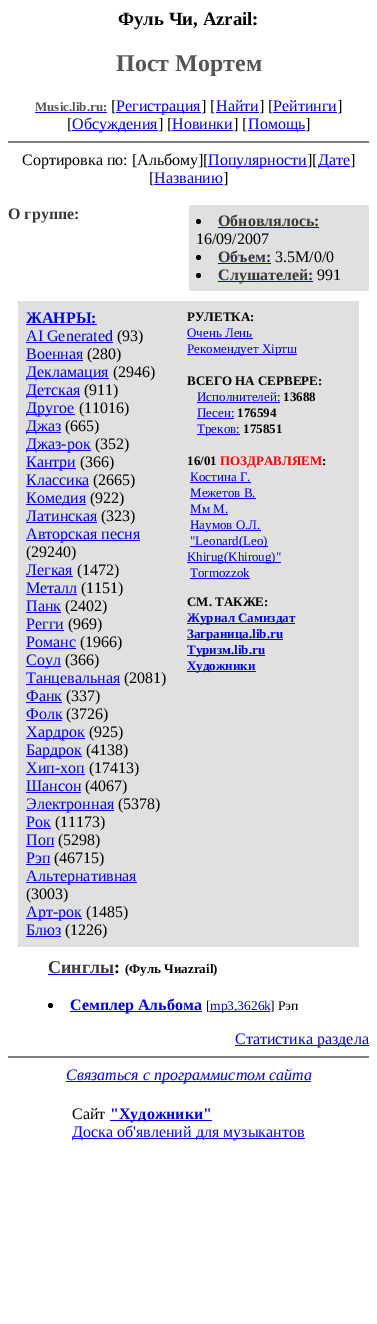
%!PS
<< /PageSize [377 1324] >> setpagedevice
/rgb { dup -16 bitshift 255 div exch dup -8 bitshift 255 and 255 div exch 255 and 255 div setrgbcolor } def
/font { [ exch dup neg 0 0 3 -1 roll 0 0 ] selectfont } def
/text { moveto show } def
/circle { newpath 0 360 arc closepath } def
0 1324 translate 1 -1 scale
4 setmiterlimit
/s1 { /LiberationSerif-Bold 18.75 font 16#000000 rgb } def
/s2 { /LiberationSerif-Bold 24 font 16#555555 rgb } def
/s3 { /LiberationSerif-Bold 13 font 16#555555 rgb } def
/s4 { /LiberationSerif-Regular 16 font 16#000000 rgb } def
/s5 { /LiberationSerif-Regular 16 font 16#0000EE rgb } def
/s6 { /LiberationSerif-Bold 16 font 16#393939 rgb } def
/s7 { /LiberationSerif-Bold 16 font 16#0000EE rgb } def
/s8 { /LiberationSerif-Bold 13 font 16#000000 rgb } def
/s9 { /LiberationSerif-Regular 13 font 16#0000EE rgb } def
/s10 { /LiberationSerif-Bold 13 font 16#FF0000 rgb } def
/s11 { /LiberationSerif-Bold 13 font 16#0000EE rgb } def
/s12 { /LiberationSerif-Bold 18 font 16#393939 rgb } def
/s13 { /LiberationSerif-Bold 18 font 16#000000 rgb } def
/s14 { /LiberationSerif-Regular 13.5 font 16#000000 rgb } def
/s15 { /LiberationSerif-Regular 13.5 font 16#0000EE rgb } def
/s16 { /LiberationSerif-Italic 16 font 16#0000EE rgb } def
16#FFFFFF rgb
0 0 377 1324 rectfill
s1
(Фуль Чи, Azrail:) 118 25 text
s2
(Пост Мортем) 116 71 text
s3
(Music.lib.ru:) 35 111 text
16#0000EE rgb
35 112 72 1 rectfill
s4
([) 111 111 text
16#0000EE rgb
116 112 85 1 rectfill
(Регистрация) 116 111 text
s4
(] [) 201 111 text
s5
(Найти) 216 111 text
216 112 43 1 rectfill
s4
(] [) 259 111 text
s5
(Рейтинги) 273 111 text
273 112 64 1 rectfill
s4
(]) 337 111 text
([) 67 129 text
16#0000EE rgb
72 130 86 1 rectfill
(Обсуждения) 72 129 text
s4
(] [) 158 129 text
s5
(Новинки) 172 129 text
172 130 61 1 rectfill
s4
(] [) 233 129 text
16#0000EE rgb
248 130 57 1 rectfill
(Помощь) 248 129 text
s4
(]) 305 129 text
16#808080 rgb
8 141 361 2 rectfill
s4
(Сортировка по: [Альбому][) 22 165 text
16#0000EE rgb
208 166 99 1 rectfill
(Популярности) 208 165 text
s4
(][) 307 165 text
16#0000EE rgb
318 166 32 1 rectfill
(Дате) 318 165 text
s4
(]) 350 165 text
([) 149 183 text
s5
(Названию) 154 183 text
154 184 69 1 rectfill
s4
(]) 223 183 text
s6
(О группе:) 8 219 text
16#E0E0E0 rgb
189 205 180 86 rectfill
16#000000 rgb
198.5 221.5 2.5 circle fill
s6
(Обновлялось:) 218 226 text
16#0000EE rgb
218 227 101 1 rectfill
s4
(16/09/2007) 196 244 text
198.5 257.5 2.5 circle fill
s6
(Объем:) 218 262 text
16#0000EE rgb
218 263 53 1 rectfill
s4
(3.5M/0/0) 275 262 text
198.5 275.5 2.5 circle fill
16#0000EE rgb
218 281 95 1 rectfill
s6
(Слушателей:) 218 280 text
s4
(991) 317 280 text
16#E0E0E0 rgb
18 301 341 646 rectfill
s7
(ЖАНРЫ:) 26 323 text
26 324 71 1 rectfill
s5
(AI Generated) 26 341 text
26 342 87 1 rectfill
s4
(\(93\)) 117 341 text
s5
(Военная) 26 359 text
26 360 57 1 rectfill
s4
(\(280\)) 87 359 text
16#0000EE rgb
26 378 83 1 rectfill
(Декламация) 26 377 text
s4
(\(2946\)) 113 377 text
16#0000EE rgb
26 396 54 1 rectfill
(Детская) 26 395 text
s4
(\(911\)) 84 395 text
16#0000EE rgb
26 414 49 1 rectfill
(Другое) 26 413 text
s4
(\(11016\)) 79 413 text
16#0000EE rgb
26 432 35 1 rectfill
(Джаз) 26 431 text
s4
(\(665\)) 65 431 text
16#0000EE rgb
26 450 65 1 rectfill
(Джаз-рок) 26 449 text
s4
(\(352\)) 95 449 text
16#0000EE rgb
26 468 50 1 rectfill
(Кантри) 26 467 text
s4
(\(366\)) 80 467 text
s5
(Классика) 26 485 text
26 486 63 1 rectfill
s4
(\(2665\)) 93 485 text
16#0000EE rgb
26 504 60 1 rectfill
(Комедия) 26 503 text
s4
(\(922\)) 90 503 text
s5
(Латинская) 26 521 text
26 522 71 1 rectfill
s4
(\(323\)) 101 521 text
16#0000EE rgb
26 540 114 1 rectfill
(Авторская песня) 26 539 text
s4
(\(29240\)) 26 557 text
s5
(Легкая) 26 575 text
26 576 47 1 rectfill
s4
(\(1472\)) 77 575 text
s5
(Металл) 26 593 text
26 594 51 1 rectfill
s4
(\(1151\)) 81 593 text
s5
(Панк) 26 611 text
26 612 35 1 rectfill
s4
(\(2402\)) 65 611 text
s5
(Регги) 26 629 text
26 630 38 1 rectfill
s4
(\(969\)) 68 629 text
s5
(Романс) 26 647 text
26 648 50 1 rectfill
s4
(\(1966\)) 80 647 text
16#0000EE rgb
26 666 35 1 rectfill
(Соул) 26 665 text
s4
(\(366\)) 65 665 text
16#0000EE rgb
26 684 94 1 rectfill
(Танцевальная) 26 683 text
s4
(\(2081\)) 124 683 text
s5
(Фанк) 26 701 text
26 702 36 1 rectfill
s4
(\(337\)) 66 701 text
s5
(Фолк) 26 719 text
26 720 36 1 rectfill
s4
(\(3726\)) 66 719 text
16#0000EE rgb
26 738 59 1 rectfill
(Хардрок) 26 737 text
s4
(\(925\)) 89 737 text
16#0000EE rgb
26 756 56 1 rectfill
(Бардрок) 26 755 text
s4
(\(4138\)) 86 755 text
s5
(Хип-хоп) 26 773 text
26 774 59 1 rectfill
s4
(\(17413\)) 89 773 text
s5
(Шансон) 26 791 text
26 792 55 1 rectfill
s4
(\(4067\)) 85 791 text
16#0000EE rgb
26 810 88 1 rectfill
(Электронная) 26 809 text
s4
(\(5378\)) 118 809 text
s5
(Рок) 26 827 text
26 828 25 1 rectfill
s4
(\(11173\)) 55 827 text
s5
(Поп) 26 845 text
26 846 28 1 rectfill
s4
(\(5298\)) 58 845 text
s5
(Рэп) 26 863 text
26 864 24 1 rectfill
s4
(\(46715\)) 54 863 text
16#0000EE rgb
26 882 111 1 rectfill
(Альтернативная) 26 881 text
s4
(\(3003\)) 26 899 text
16#0000EE rgb
26 918 56 1 rectfill
(Арт-рок) 26 917 text
s4
(\(1485\)) 86 917 text
s5
(Блюз) 26 935 text
26 936 35 1 rectfill
s4
(\(1226\)) 65 935 text
s8
(РУЛЕТКА:) 187 321 text
s9
(Очень Лень) 187 337 text
187 338 66 1 rectfill
187 354 110 1 rectfill
(Рекомендует Хiртш) 187 353 text
s8
(ВСЕГО НА СЕРВЕРЕ:) 187 385 text
s9
(Исполнителей:) 197 401 text
197 402 83 1 rectfill
s8
(13688) 283 401 text
s9
(Песен:) 197 417 text
197 418 37 1 rectfill
s8
(176594) 237 417 text
16#0000EE rgb
197 434 43 1 rectfill
s9
(Треков:) 197 433 text
s8
(175851) 243 433 text
(16/01) 187 465 text
s10
(ПОЗДРАВЛЯЕМ) 220 465 text
s8
(:) 322 465 text
s9
(Костина Г.) 190 481 text
190 482 61 1 rectfill
(Межетов В.) 190 497 text
190 498 66 1 rectfill
(Мм М.) 190 513 text
190 514 38 1 rectfill
190 530 71 1 rectfill
(Наумов О.Л.) 190 529 text
190 546 78 1 rectfill
("Leonard\(Leo\)) 190 545 text
187 562 94 1 rectfill
(Khirug\(Khiroug\)") 187 561 text
(Tormozzok) 190 577 text
190 578 60 1 rectfill
s8
(СМ. ТАКЖЕ:) 187 606 text
16#0000EE rgb
187 623 108 1 rectfill
(Журнал Самиздат) 187 622 text
187 639 96 1 rectfill
(Заграница.lib.ru) 187 638 text
187 655 78 1 rectfill
(Туризм.lib.ru) 187 654 text
187 671 69 1 rectfill
(Художники) 187 670 text
s12
(Синглы) 48 973 text
s13
(:) 114 973 text
16#0000EE rgb
48 974 66 1 rectfill
s8
(\(Фуль Чиazrail\)) 125 973 text
50.5 1005.5 2.5 circle fill
16#0000EE rgb
70 1011 132 1 rectfill
s7
(Семплер Альбома) 70 1010 text
s14
([) 206 1010 text
16#0000EE rgb
210 1011 60 1 rectfill
(mp3,3626k) 210 1010 text
s14
(] Рэп) 270 1010 text
16#0000EE rgb
235 1045 134 1 rectfill
s5
(Статистика раздела) 235 1044 text
16#808080 rgb
8 1056 361 2 rectfill
16#0000EE rgb
66 1081 245 1 rectfill
s16
(Связаться с программистом сайта) 66 1080 text
s4
(Сайт) 72 1119 text
16#0000EE rgb
110 1120 102 1 rectfill
s7
("Художники") 110 1119 text
72 1138 233 1 rectfill
s5
(Доска об'явлений для музыкантов) 72 1137 text
showpage
